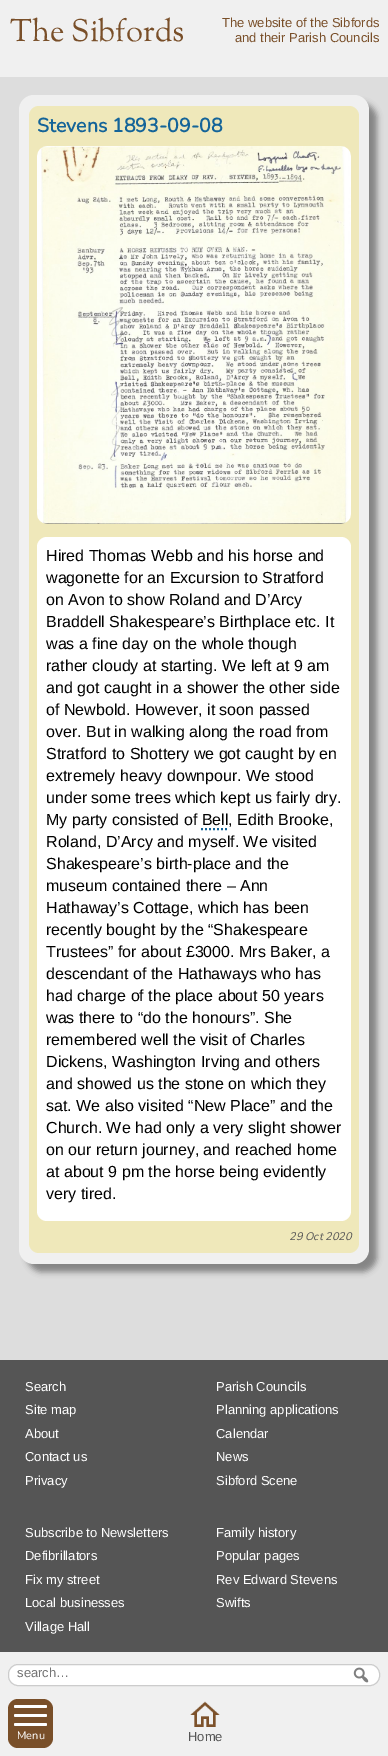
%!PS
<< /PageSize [388 1756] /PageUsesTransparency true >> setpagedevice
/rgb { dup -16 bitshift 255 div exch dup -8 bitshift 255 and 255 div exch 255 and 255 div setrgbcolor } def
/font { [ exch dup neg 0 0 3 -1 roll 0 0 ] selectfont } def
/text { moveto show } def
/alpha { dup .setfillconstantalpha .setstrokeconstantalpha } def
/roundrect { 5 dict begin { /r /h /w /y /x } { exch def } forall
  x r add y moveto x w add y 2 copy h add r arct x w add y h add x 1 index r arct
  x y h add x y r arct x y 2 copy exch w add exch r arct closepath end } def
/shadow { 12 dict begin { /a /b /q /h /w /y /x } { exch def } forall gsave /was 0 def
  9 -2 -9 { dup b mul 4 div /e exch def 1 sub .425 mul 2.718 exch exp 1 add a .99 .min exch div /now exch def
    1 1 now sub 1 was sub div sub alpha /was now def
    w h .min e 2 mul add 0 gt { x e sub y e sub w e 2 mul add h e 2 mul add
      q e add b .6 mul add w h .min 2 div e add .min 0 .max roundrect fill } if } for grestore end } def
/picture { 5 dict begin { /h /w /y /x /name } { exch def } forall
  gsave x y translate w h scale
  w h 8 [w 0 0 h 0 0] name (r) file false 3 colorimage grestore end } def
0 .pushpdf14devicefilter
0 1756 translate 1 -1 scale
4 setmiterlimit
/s1 { /SortsMillGoudy-Regular 31 font 16#794F29 rgb } def
/s2 { /LiberationSans-Regular 13 font 16#794F29 rgb } def
/s3 { /Nunito-Bold 19.5 font 16#146499 rgb } def
/s4 { /LiberationSans-Regular 16 font 16#000000 rgb } def
/s5 { /Nunito-ExtraLightItalic 11 font 16#555555 rgb } def
/s6 { /LiberationSans-Regular 13 font 16#FFFFFF rgb } def
/s7 { /LiberationSans-Regular 13 font 16#757575 rgb } def
/s8 { /Nunito-ExtraLight 11 font 16#FFFFFF rgb } def
/s9 { /LiberationSans-Regular 13 font 16#555555 rgb } def
16#F0F0F0 rgb
0 0 388 1756 rectfill
s1
(The Sibfords) 10 41 text
s2
(The website of the Sibfords) 222 27 text
(and their Parish Councils) 235 42 text
16#DDDDDD rgb
0 77 388 1283 rectfill
16#000000 rgb
27 103 350 1169 15 3 0.4 shadow
16#F0F0F0 rgb
19 95 350 1169 15 roundrect fill
16#EFE8BA rgb
29 106 330 1147 10 roundrect fill
s3
(Stevens 1893-09-08) 37 132 text
(pic1.raw) 37 146 314 378 picture
16#FFFFFF rgb
37 537 314 684 10 roundrect fill
s4
(Hired Thomas Webb and his horse and) 46 561 text
(wagonette for an Excursion to Stratford) 46 583 text
(on Avon to show Roland and D’Arcy) 46 605 text
(Braddell Shakespeare’s Birthplace etc. It) 46 627 text
(was a fine day on the whole though) 46 649 text
(rather cloudy at starting. We left at 9 am) 46 671 text
(and got caught in a shower the other side) 46 693 text
(of Newbold. However, it soon passed) 46 715 text
(over. But in walking along the road from) 46 737 text
(Stratford to Shottery we got caught by en) 46 759 text
(extremely heavy downpour. We stood) 46 781 text
(under some trees which kept us fairly dry.) 46 803 text
(My party consisted of Bell, Edith Brooke,) 46 825 text
16#146499 rgb
2 setlinewidth
[2 2] 0 setdash
201 829 moveto 228 829 lineto stroke
s4
(Roland, D’Arcy and myself. We visited) 46 847 text
(Shakespeare’s birth-place and the) 46 869 text
(museum contained there – Ann) 46 891 text
(Hathaway’s Cottage, which has been) 46 913 text
(recently bought by the “Shakespeare) 46 935 text
(Trustees” for about £3000. Mrs Baker, a) 46 957 text
(descendant of the Hathaways who has) 46 979 text
(had charge of the place about 50 years) 46 1001 text
(was there to “do the honours”. She) 46 1023 text
(remembered well the visit of Charles) 46 1045 text
(Dickens, Washington Irving and others) 46 1067 text
(and showed us the stone on which they) 46 1089 text
(sat. We also visited “New Place” and the) 46 1111 text
(Church. We had only a very slight shower) 46 1133 text
(on our return journey, and reached home) 46 1155 text
(at about 9 pm the horse being evidently) 46 1177 text
(very tired.) 46 1199 text
s5
(29 Oct 2020) 289 1240 text
0 1360 388 292 rectfill
s6
(Search) 25 1391 text
(Site map) 25 1414 text
(About) 25 1438 text
(Contact us) 25 1461 text
(Privacy) 25 1485 text
(Subscribe to Newsletters) 25 1537 text
(Defibrillators) 25 1560 text
(Fix my street) 25 1584 text
(Local businesses) 25 1607 text
(Village Hall) 25 1631 text
(Parish Councils) 216 1391 text
(Planning applications) 216 1414 text
(Calendar) 216 1438 text
(News) 216 1461 text
(Sibford Scene) 216 1485 text
(Family history) 216 1537 text
(Popular pages) 216 1560 text
(Rev Edward Stevens) 216 1584 text
(Swifts) 216 1607 text
8.5 1664.5 371 21 9.5 roundrect gsave fill grestore
16#CCCCCC rgb
1 setlinewidth
[] 0 setdash
stroke
s7
(search…) 17 1677 text
(pic2.raw) 353 1667 16 16 picture
16#794F29 rgb
8 1699 45 49 10 roundrect fill
16#FFFFFF rgb
14 1714 33 3 1.5 roundrect fill
14 1705 33 3 1.5 roundrect fill
14 1723 33 3 1.5 roundrect fill
s8
(Menu) 17 1739 text
(pic3.raw) 190 1701 30 26 picture
s9
(Home) 188 1741 text
.poppdf14devicefilter showpage
